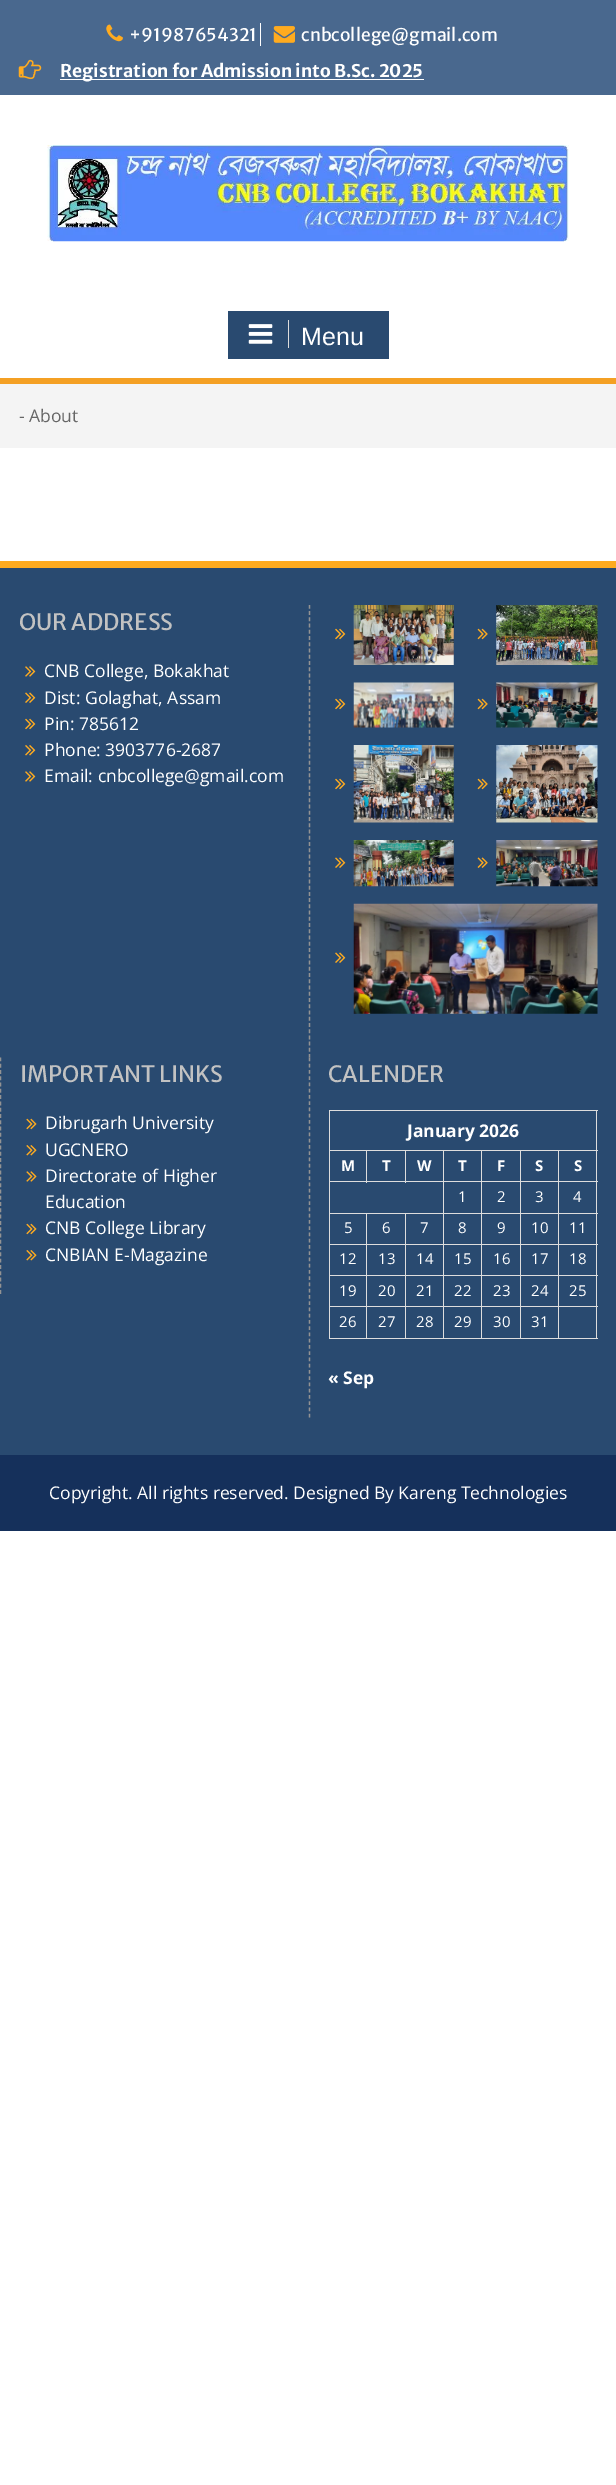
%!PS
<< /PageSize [616 2485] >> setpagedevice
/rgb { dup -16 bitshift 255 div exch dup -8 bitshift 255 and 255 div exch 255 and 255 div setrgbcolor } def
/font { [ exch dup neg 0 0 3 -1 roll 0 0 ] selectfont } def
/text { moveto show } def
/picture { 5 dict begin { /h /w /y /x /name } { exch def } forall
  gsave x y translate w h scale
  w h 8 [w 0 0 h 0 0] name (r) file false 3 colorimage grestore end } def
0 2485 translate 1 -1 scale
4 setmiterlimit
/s1 { /MerriweatherSans-Regular 17.5 font 16#FFFFFF rgb } def
/s2 { /MerriweatherSans-Bold 17.5 font 16#FFFFFF rgb } def
/s3 { /LiberationSans-Regular 25 font 16#FFFFFF rgb } def
/s4 { /OpenSans-Regular 17.5 font 16#666666 rgb } def
/s5 { /MerriweatherSans-Regular 22.5 font 16#C2C2C2 rgb } def
/s6 { /OpenSans-Regular 17.5 font 16#FFFFFF rgb } def
/s7 { /OpenSans-Bold 17.5 font 16#FFFFFF rgb } def
/s8 { /OpenSans-Bold 15 font 16#FFFFFF rgb } def
/s9 { /OpenSans-Regular 15 font 16#FFFFFF rgb } def
16#FFFFFF rgb
0 0 616 2485 rectfill
16#49688E rgb
0 0 616 95 rectfill
(pic1.raw) 106 24 17 18 picture
s1
(+91987654321) 129 41 text
260 23 1 23 rectfill
(pic2.raw) 273 26 22 17 picture
(cnbcollege@gmail.com) 301 41 text
(pic3.raw) 18 59 24 21 picture
60 79 364 1 rectfill
s2
(Registration for Admission into B.Sc. 2025) 60 77 text
(pic4.raw) 47 145 522 97 picture
16#F4A024 rgb
0 378 616 6 rectfill
16#294A70 rgb
228 311 161 48 rectfill
16#DDDDDD rgb
288 320 1 28 rectfill
(pic5.raw) 248 324 25 20 picture
s3
(Menu) 301 345 text
16#F4F4F4 rgb
0 384 616 64 rectfill
s4
(- About) 19 422 text
16#294A70 rgb
0 568 616 887 rectfill
16#FFAB1F rgb
0 561 616 7 rectfill
s5
(OUR ADDRESS) 19 630 text
(pic6.raw) 25 666 11 11 picture
s6
(CNB College, Bokakhat) 44 677 text
(pic7.raw) 25 692 11 11 picture
(Dist: Golaghat, Assam) 44 704 text
(pic8.raw) 25 718 11 12 picture
(Pin: 785612) 44 730 text
(pic9.raw) 25 745 11 11 picture
(Phone: 3903776-2687) 44 756 text
(pic6.raw) 25 771 11 11 picture
(Email: cnbcollege@gmail.com) 44 782 text
16#939393 rgb
1.2 setlinewidth
[3.75 2.49] 0 setdash
309.5 605 moveto 309.5 1057.5 lineto stroke
(pic8.raw) 335 628 11 12 picture
(pic10.raw) 353 605 101 60 picture
(pic11.raw) 477 628 11 12 picture
(pic12.raw) 496 605 102 60 picture
(pic8.raw) 335 698 11 12 picture
(pic13.raw) 353 682 101 46 picture
(pic11.raw) 477 698 11 12 picture
(pic14.raw) 496 682 102 46 picture
(pic8.raw) 335 778 11 12 picture
(pic15.raw) 353 745 101 78 picture
(pic11.raw) 477 778 11 12 picture
(pic16.raw) 496 745 102 78 picture
(pic7.raw) 335 857 11 11 picture
(pic17.raw) 353 840 101 47 picture
(pic18.raw) 477 857 11 11 picture
(pic19.raw) 496 840 102 47 picture
(pic7.raw) 335 952 11 11 picture
(pic20.raw) 353 903 245 111 picture
[3.75 2.54] 0 setdash
0.5 1057.5 moveto 0.5 1294 lineto stroke
s5
(IMPORTANT LINKS) 20 1082 text
(pic21.raw) 26 1118 11 12 picture
s6
(Dibrugarh University) 45 1129 text
(pic22.raw) 26 1145 11 11 picture
(UGCNERO) 45 1156 text
(pic23.raw) 26 1171 11 11 picture
(Directorate of Higher) 45 1182 text
(Education) 45 1208 text
(pic21.raw) 26 1223 11 12 picture
(CNB College Library) 45 1234 text
(pic22.raw) 26 1250 11 11 picture
(CNBIAN E-Magazine) 45 1261 text
16#939393 rgb
[3.75 2.5] 0 setdash
309.5 1057.5 moveto 309.5 1417.5 lineto stroke
s5
(CALENDER) 328 1082 text
16#DDDDDD rgb
329 1110 269 1 rectfill
596 1110 1 40 rectfill
329 1110 1 40 rectfill
s7
(January 2026) 407 1137 text
16#DDDDDD rgb
558 1150 40 1 rectfill
558 1181 40 1 rectfill
558 1213 40 1 rectfill
558 1244 40 1 rectfill
558 1275 40 1 rectfill
558 1306 40 1 rectfill
596 1306 1 33 rectfill
558 1338 40 1 rectfill
558 1306 1 33 rectfill
520 1306 39 1 rectfill
558 1275 1 33 rectfill
520 1275 39 1 rectfill
558 1244 1 32 rectfill
520 1244 39 1 rectfill
558 1213 1 32 rectfill
520 1213 39 1 rectfill
558 1181 1 33 rectfill
520 1181 39 1 rectfill
558 1150 1 33 rectfill
520 1150 39 1 rectfill
520 1338 39 1 rectfill
520 1306 1 33 rectfill
481 1306 40 1 rectfill
520 1275 1 33 rectfill
481 1275 40 1 rectfill
520 1244 1 32 rectfill
481 1244 40 1 rectfill
520 1213 1 32 rectfill
481 1213 40 1 rectfill
520 1181 1 33 rectfill
481 1181 40 1 rectfill
520 1150 1 33 rectfill
481 1150 40 1 rectfill
481 1338 40 1 rectfill
481 1306 1 33 rectfill
443 1306 40 1 rectfill
481 1275 1 33 rectfill
443 1275 40 1 rectfill
481 1244 1 32 rectfill
443 1244 40 1 rectfill
481 1213 1 32 rectfill
443 1213 40 1 rectfill
481 1181 1 33 rectfill
443 1181 40 1 rectfill
481 1150 1 33 rectfill
443 1150 40 1 rectfill
443 1338 40 1 rectfill
443 1306 1 33 rectfill
405 1306 39 1 rectfill
443 1275 1 33 rectfill
405 1275 39 1 rectfill
443 1244 1 32 rectfill
405 1244 39 1 rectfill
443 1213 1 32 rectfill
405 1213 39 1 rectfill
443 1181 1 33 rectfill
329 1181 115 1 rectfill
443 1150 1 33 rectfill
405 1150 39 1 rectfill
405 1150 1 33 rectfill
366 1150 40 1 rectfill
366 1150 1 33 rectfill
329 1150 39 1 rectfill
405 1338 39 1 rectfill
405 1306 1 33 rectfill
366 1306 40 1 rectfill
405 1275 1 33 rectfill
366 1275 40 1 rectfill
405 1244 1 32 rectfill
366 1244 40 1 rectfill
405 1213 1 32 rectfill
366 1213 40 1 rectfill
366 1338 40 1 rectfill
366 1306 1 33 rectfill
329 1306 39 1 rectfill
366 1275 1 33 rectfill
329 1275 39 1 rectfill
366 1244 1 32 rectfill
329 1244 39 1 rectfill
366 1213 1 32 rectfill
329 1213 39 1 rectfill
329 1338 39 1 rectfill
329 1306 1 33 rectfill
329 1275 1 33 rectfill
329 1244 1 32 rectfill
329 1213 1 32 rectfill
329 1181 1 33 rectfill
329 1150 1 33 rectfill
s8
(M) 341 1171 text
(T) 382 1171 text
(W) 417 1171 text
(T) 458 1171 text
(F) 497 1171 text
(S) 535 1171 text
16#DDDDDD rgb
596 1275 1 33 rectfill
596 1244 1 32 rectfill
596 1213 1 32 rectfill
596 1181 1 33 rectfill
596 1150 1 33 rectfill
s8
(S) 574 1171 text
s9
(1) 458 1202 text
(2) 497 1202 text
(3) 535 1202 text
(4) 573 1202 text
(5) 344 1233 text
(6) 382 1233 text
(7) 420 1233 text
(8) 458 1233 text
(9) 497 1233 text
(10) 531 1233 text
(11) 569 1233 text
(12) 339 1264 text
(13) 378 1264 text
(14) 416 1264 text
(15) 454 1264 text
(16) 493 1264 text
(17) 531 1264 text
(18) 569 1264 text
(19) 339 1296 text
(20) 378 1296 text
(21) 416 1296 text
(22) 454 1296 text
(23) 493 1296 text
(24) 531 1296 text
(25) 569 1296 text
(26) 339 1327 text
(27) 378 1327 text
(28) 416 1327 text
(29) 454 1327 text
(30) 493 1327 text
(31) 531 1327 text
s7
(« Sep) 328 1384 text
16#15305B rgb
0 1455 616 76 rectfill
s6
(Copyright. All rights reserved. Designed By Kareng Technologies) 49 1499 text
showpage
